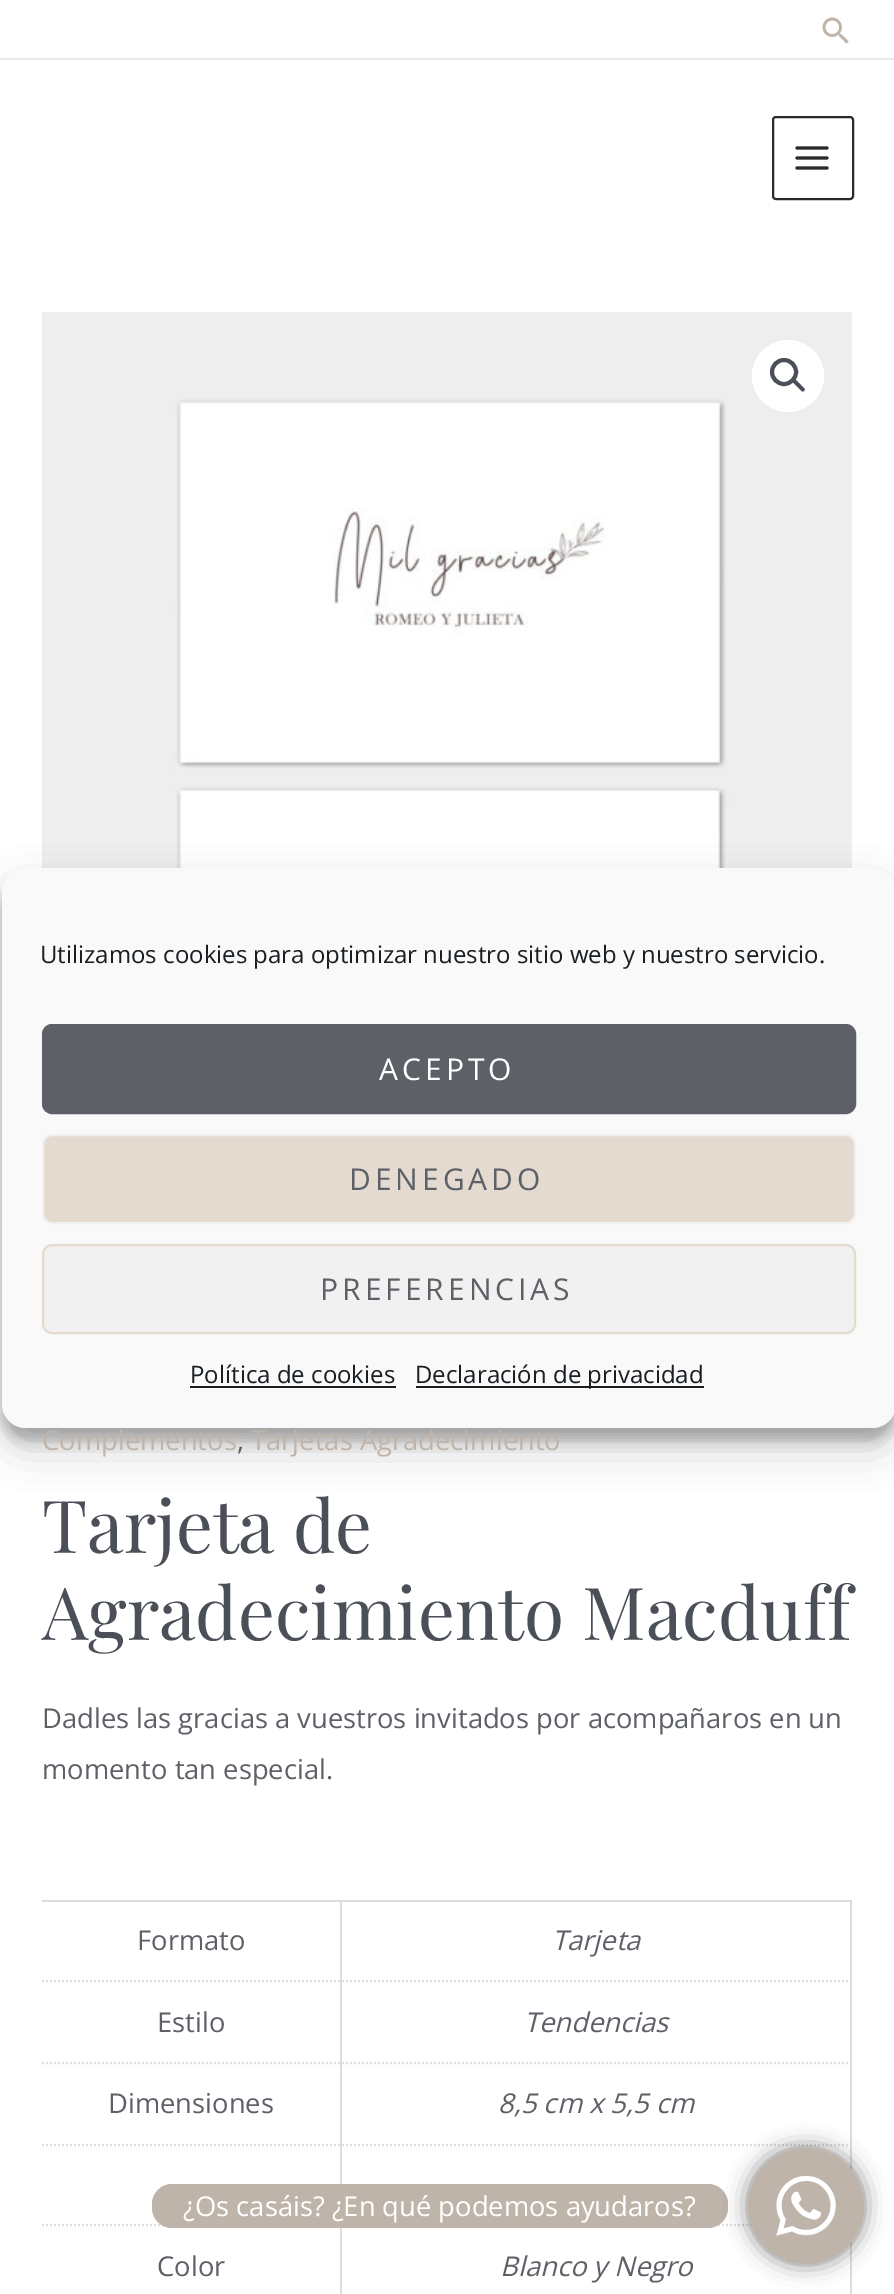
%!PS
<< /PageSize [894 2294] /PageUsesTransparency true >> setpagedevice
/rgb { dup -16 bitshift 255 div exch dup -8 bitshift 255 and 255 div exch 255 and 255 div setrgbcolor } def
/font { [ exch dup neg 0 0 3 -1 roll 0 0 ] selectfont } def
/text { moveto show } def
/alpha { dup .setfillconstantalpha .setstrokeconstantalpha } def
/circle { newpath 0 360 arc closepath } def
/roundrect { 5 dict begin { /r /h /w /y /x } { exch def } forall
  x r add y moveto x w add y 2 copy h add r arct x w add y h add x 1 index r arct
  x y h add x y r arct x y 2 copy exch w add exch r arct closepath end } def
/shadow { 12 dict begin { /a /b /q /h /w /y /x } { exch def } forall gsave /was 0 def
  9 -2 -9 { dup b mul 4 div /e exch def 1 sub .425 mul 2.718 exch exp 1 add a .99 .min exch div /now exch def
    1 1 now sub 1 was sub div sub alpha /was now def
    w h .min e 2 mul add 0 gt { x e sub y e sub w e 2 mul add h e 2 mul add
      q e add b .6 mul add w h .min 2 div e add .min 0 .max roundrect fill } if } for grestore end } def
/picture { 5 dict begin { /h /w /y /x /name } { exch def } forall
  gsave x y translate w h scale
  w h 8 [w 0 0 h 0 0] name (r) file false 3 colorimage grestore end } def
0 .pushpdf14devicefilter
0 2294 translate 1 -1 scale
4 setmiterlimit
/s1 { /OpenSans-Regular 24 font 16#191E23 rgb } def
/s2 { /OpenSans-Regular 27.35 font 16#BFB4AA rgb } def
/s3 { /OpenSans-Regular 27.35 font 16#5D6167 rgb } def
/s4 { /PlayfairDisplay-Regular 73 font 16#4B4F58 rgb } def
/s5 { /OpenSans-Italic 27.35 font 16#5D6167 rgb } def
/s6 { /OpenSans-Regular 27.35 font 16#FFFFFF rgb } def
16#FFFFFF rgb
0 0 894 2294 rectfill
(pic3.raw) 42 312 810 556 picture
16#000000 rgb
2 880 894 560 24 6 0.23 shadow
2 888 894 560 24 20 0.19 shadow
16#F9F9F9 rgb
2 868 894 560 24 roundrect fill
s1
(Utilizamos cookies para optimizar nuestro sitio web y nuestro servicio.) 40 963 text
16#5D6167 rgb
43 1025 812 88 9 roundrect gsave fill grestore
2 setlinewidth
stroke
/OpenSans-Regular 30 font
16#FFFFFF rgb
379 1080 moveto 4 0 (ACEPTO) ashow
16#E4DAD0 rgb
43 1135 812 88 9 roundrect gsave fill grestore
16#F1F1F1 rgb
stroke
16#5D6167 rgb
349 1190 moveto 4 0 (DENEGADO) ashow
16#F1F1F1 rgb
43 1245 812 88 9 roundrect gsave fill grestore
16#E4DAD0 rgb
stroke
16#5D6167 rgb
320 1300 moveto 4 0 (PREFERENCIAS) ashow
s1
(Política de cookies) 190 1383 text
190 1386 206 2 rectfill
416 1386 288 2 rectfill
(Declaración de privacidad) 415 1383 text
16#EAEAEA rgb
0 58 894 2 rectfill
(pic1.raw) 822 17 27 27 picture
16#2A2A2A rgb
773 117 80 82 3 roundrect stroke
(pic2.raw) 795 146 34 24 picture
16#FFFFFF rgb
788 376 36 circle fill
16#4B4F58 rgb
4 setlinewidth
784 372 12 circle stroke
793 379.5 moveto 793.5 378.5 795 378.5 795.5 379.5 curveto 804 388 lineto 805 388.5 805 390 804 391 curveto 803.5 391.5 802 391.5 801.5 391 curveto 793 382.5 lineto 792 381.5 792 380 793 379.5 curveto closepath fill
s2
(Complementos) 42 1450 text
s3
(,) 237 1450 text
s2
(Tarjetas Agradecimiento) 251 1450 text
s4
(Tarjeta de) 42 1553 text
(Agradecimiento Macduff) 42 1640 text
s3
(Dadles las gracias a vuestros invitados por acompañaros en un) 42 1728 text
(momento tan especial.) 42 1779 text
16#DDDDDD rgb
42 1900 810 2 rectfill
340 1902 2 282 rectfill
2 setlinewidth
[2 2] 0 setdash
42 1981 moveto 342 1981 lineto stroke
s3
(Formato) 137 1950 text
16#DDDDDD rgb
850 1902 2 269 rectfill
342 1981 moveto 852 1981 lineto stroke
s5
(Tarjeta) 552 1950 text
16#DDDDDD rgb
42 2063 moveto 342 2063 lineto stroke
s3
(Estilo) 157 2032 text
16#DDDDDD rgb
342 2063 moveto 852 2063 lineto stroke
s5
(Tendencias) 524 2032 text
16#DDDDDD rgb
42 2145 moveto 342 2145 lineto stroke
s3
(Dimensiones) 108 2113 text
16#DDDDDD rgb
342 2145 moveto 852 2145 lineto stroke
s5
(8,5 cm x 5,5 cm) 498 2113 text
16#DDDDDD rgb
42 2225 moveto 342 2225 lineto stroke
342 2225 moveto 852 2225 lineto stroke
340 2226 2 68 rectfill
s3
(Color) 157 2276 text
16#DDDDDD rgb
850 2241 2 53 rectfill
s5
(Blanco y Negro) 500 2276 text
16#BFB4AA rgb
152 2184 576 44 20 roundrect fill
s6
(¿Os casáis? ¿En qué podemos ayudaros?) 183 2216 text
16#000000 rgb
748 2148 116 116 58 11 0.5 shadow
16#BFB4AA rgb
806 2206 58 circle fill
(pic4.raw) 776 2176 60 60 picture
.poppdf14devicefilter showpage
